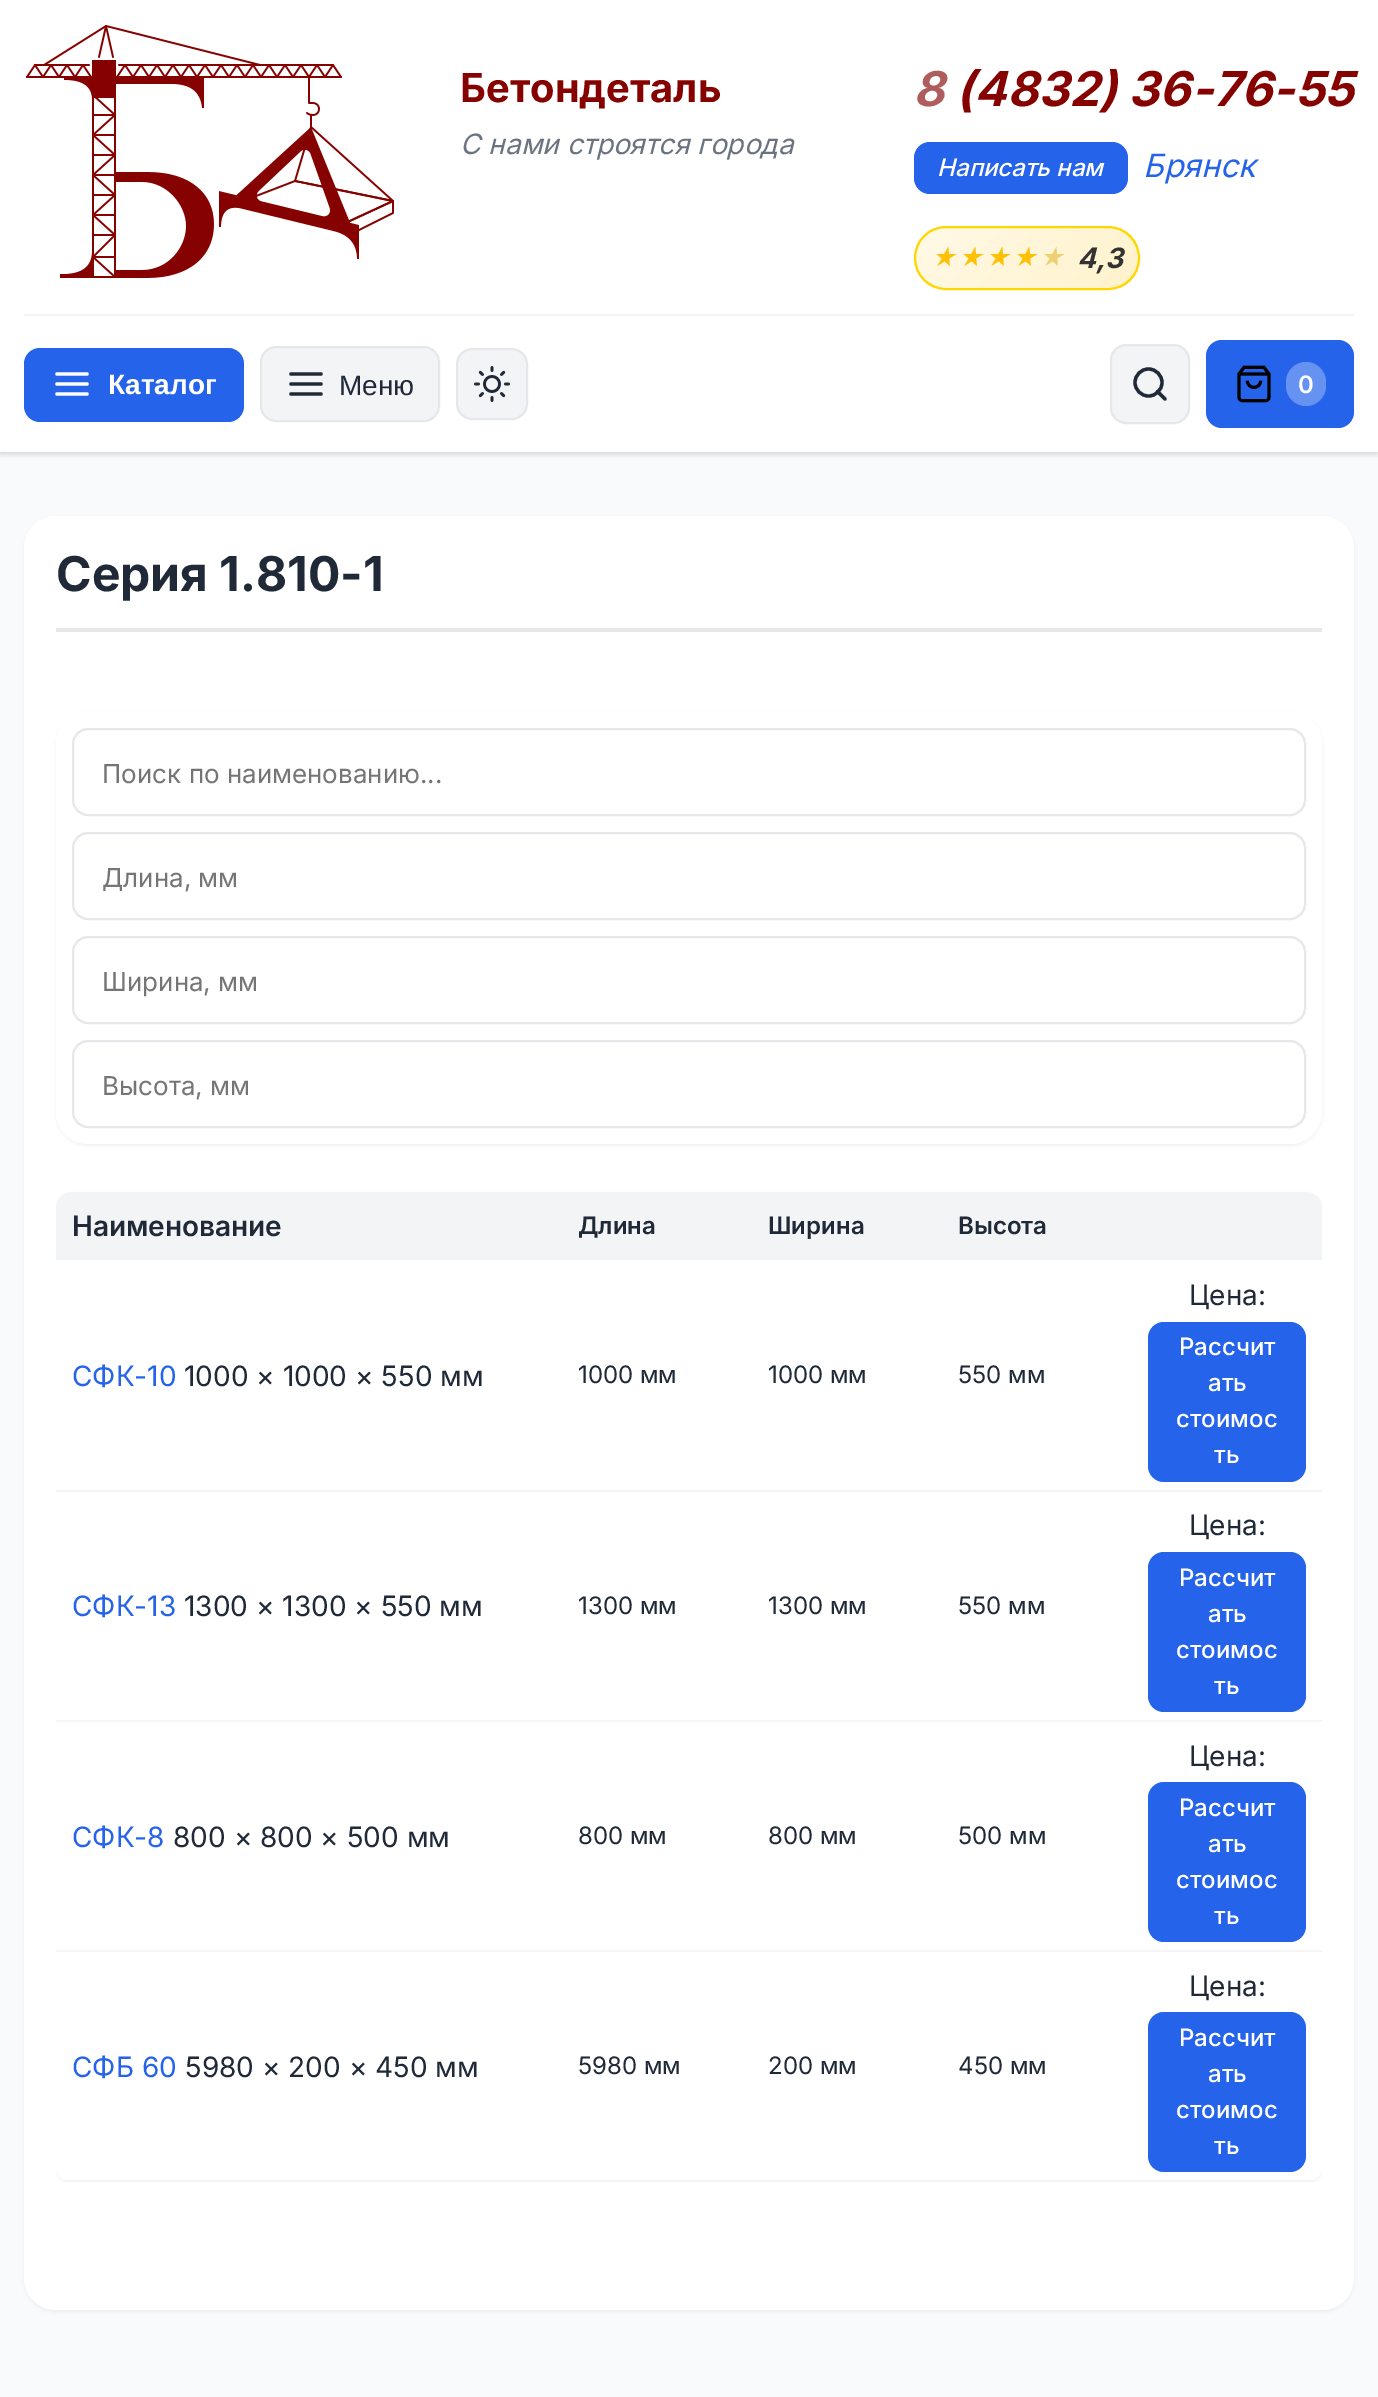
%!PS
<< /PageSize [1378 2397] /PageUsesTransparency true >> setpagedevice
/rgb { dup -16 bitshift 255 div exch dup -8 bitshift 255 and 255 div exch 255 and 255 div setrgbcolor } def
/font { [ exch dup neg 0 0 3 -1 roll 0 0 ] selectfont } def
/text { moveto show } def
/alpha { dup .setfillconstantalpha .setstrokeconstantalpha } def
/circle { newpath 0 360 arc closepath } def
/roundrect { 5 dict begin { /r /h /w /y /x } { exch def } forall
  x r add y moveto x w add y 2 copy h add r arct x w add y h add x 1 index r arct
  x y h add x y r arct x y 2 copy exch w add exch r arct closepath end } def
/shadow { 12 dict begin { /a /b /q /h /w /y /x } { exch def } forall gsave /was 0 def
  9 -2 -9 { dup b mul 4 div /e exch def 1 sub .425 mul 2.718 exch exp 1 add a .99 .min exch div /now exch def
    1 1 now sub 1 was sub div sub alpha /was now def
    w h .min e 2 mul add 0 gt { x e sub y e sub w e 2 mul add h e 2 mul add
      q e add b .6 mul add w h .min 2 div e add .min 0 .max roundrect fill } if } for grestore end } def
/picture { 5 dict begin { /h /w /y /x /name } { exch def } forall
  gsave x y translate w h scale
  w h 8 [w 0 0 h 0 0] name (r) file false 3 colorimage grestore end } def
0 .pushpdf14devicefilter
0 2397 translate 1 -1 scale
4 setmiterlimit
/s1 { /Inter-Bold 40 font 16#850200 rgb } def
/s2 { /Inter-Italic 28 font 16#6B7280 rgb } def
/s3 { /Inter-BoldItalic 48 font 16#AF5C5C rgb } def
/s4 { /Inter-BoldItalic 48 font 16#850200 rgb } def
/s5 { /Inter-MediumItalic 24 font 16#FFFFFF rgb } def
/s6 { /Inter-Italic 32 font 16#2563EB rgb } def
/s7 { /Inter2-Italic 24 font 16#FFC107 rgb } def
/s8 { /Inter2-Italic 24 font 16#EECF72 rgb } def
/s9 { /Inter-BoldItalic 28 font 16#333333 rgb } def
/s10 { /LiberationSans-Bold 28 font 16#FFFFFF rgb } def
/s11 { /LiberationSans-Regular 28 font 16#1F2937 rgb } def
/s12 { /Inter-SemiBold 24 font 16#FFFFFF rgb } def
/s13 { /Inter-Bold 48 font 16#1F2937 rgb } def
/s14 { /Inter-Regular 26 font 16#757575 rgb } def
/s15 { /Inter-SemiBold 28 font 16#1F2937 rgb } def
/s16 { /Inter-SemiBold 24 font 16#1F2937 rgb } def
/s17 { /Inter-Regular 28 font 16#2563EB rgb } def
/s18 { /Inter-Regular 28 font 16#1F2937 rgb } def
/s19 { /Inter-Regular 24 font 16#1F2937 rgb } def
/s20 { /Inter-Medium 24 font 16#FFFFFF rgb } def
16#F9FAFB rgb
0 0 1378 2397 rectfill
16#000000 rgb
0 2 1378 452 0 2 0.06 shadow
0 2 1378 452 0 3 0.1 shadow
16#FFFFFF rgb
0 0 1378 452 rectfill
16#F3F4F6 rgb
24 314 1330 2 rectfill
(pic1.raw) 26 25 368 253 picture
s1
(Бетондеталь) 460 102 text
s2
(С нами строятся города) 460 154 text
s3
(8) 913 106 text
s4
(\(4832\) 36-76-55) 956 106 text
16#2563EB rgb
914 142 214 52 16 roundrect fill
s5
(Написать нам) 937 176 text
s6
(Брянск) 1143 177 text
gsave
914 226 226 64 32 roundrect clip newpath
gsave 916 228 moveto 1138 228 lineto 1138 288 lineto 916 288 lineto closepath clip newpath
<< /ShadingType 2 /ColorSpace /DeviceRGB /Coords [957 188 1098 329] /Extend [true true] /Function << /FunctionType 2 /Domain [0 1] /C0 [1 0.976 0.902] /C1 [1 0.953 0.8] /N 1 >> >> shfill grestore
grestore
16#FFD700 rgb
2 setlinewidth
915 227 224 62 31 roundrect stroke
s7
(★) 931 266 text
(★) 958 266 text
(★) 985 266 text
(★) 1012 266 text
s8
(★) 1039 266 text
s9
(4,3) 1077 268 text
16#2563EB rgb
24 348 220 74 16 roundrect fill
16#FFFFFF rgb
3.3 setlinewidth
1 setlinecap
1 setlinejoin
57 374 moveto 87 374 lineto 57 384 moveto 87 384 lineto 57 394 moveto 87 394 lineto stroke
s10
(Каталог) 108 394 text
16#F3F4F6 rgb
261 347 178 74 15 roundrect gsave fill grestore
16#E5E7EB rgb
2 setlinewidth
0 setlinecap
0 setlinejoin
stroke
16#1F2937 rgb
3.3 setlinewidth
1 setlinecap
1 setlinejoin
291 374 moveto 321 374 lineto 291 384 moveto 321 384 lineto 291 394 moveto 321 394 lineto stroke
s11
(Меню) 339 395 text
16#F3F4F6 rgb
457 349 70 70 15 roundrect gsave fill grestore
16#E5E7EB rgb
2 setlinewidth
0 setlinecap
0 setlinejoin
stroke
(pic2.raw) 474 366 36 36 picture
16#F3F4F6 rgb
1111 345 78 78 15 roundrect gsave fill grestore
16#E5E7EB rgb
stroke
16#1F2937 rgb
3.3 setlinewidth
1148.5 382.5 13.5 circle stroke
1 setlinecap
1 setlinejoin
1165 399 moveto 1157.5 391.5 lineto stroke
16#2563EB rgb
1206 340 148 88 16 roundrect fill
(pic3.raw) 1237 365 34 38 picture
16#6692F1 rgb
1286 362 40 44 20 roundrect fill
s12
(0) 1298 393 text
16#000000 rgb
24 518 1330 1794 32 2 0.05 shadow
16#FFFFFF rgb
24 516 1330 1794 32 roundrect fill
16#E5E7EB rgb
56 628 1266 4 rectfill
s13
(Серия 1.810-1) 56 591 text
16#000000 rgb
56 714 1266 432 32 2 0.05 shadow
16#FFFFFF rgb
56 712 1266 432 32 roundrect fill
16#E5E7EB rgb
2 setlinewidth
0 setlinecap
0 setlinejoin
73 729 1232 86 15 roundrect stroke
s14
(Поиск по наименованию...) 102 783 text
16#E5E7EB rgb
73 833 1232 86 15 roundrect stroke
s14
(Длина, мм) 102 887 text
16#E5E7EB rgb
73 937 1232 86 15 roundrect stroke
s14
(Ширина, мм) 102 991 text
16#E5E7EB rgb
73 1041 1232 86 15 roundrect stroke
s14
(Высота, мм) 102 1095 text
gsave
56 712 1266 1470 rectclip
16#000000 rgb
56 1194 1266 990 16 2 0.05 shadow
grestore
16#FFFFFF rgb
56 1192 1266 990 16 roundrect fill
16#F3F4F6 rgb
72 1192 moveto 562 1192 lineto 562 1260 lineto 56 1260 lineto 56 1208 lineto 56 1199 63 1192 72 1192 curveto closepath fill
s15
(Наименование) 72 1236 text
16#F3F4F6 rgb
562 1192 570 68 rectfill
s16
(Длина) 578 1234 text
(Ширина) 768 1234 text
(Высота) 958 1234 text
16#F3F4F6 rgb
1132 1192 moveto 1306 1192 lineto 1315 1192 1322 1199 1322 1208 curveto 1322 1260 lineto 1132 1260 lineto closepath fill
s17
(СФК-10) 72 1386 text
s18
(1000 × 1000 × 550 мм) 184 1386 text
s19
(1000 мм) 578 1383 text
(1000 мм) 768 1383 text
(550 мм) 958 1383 text
16#F3F4F6 rgb
56 1490 1266 2 rectfill
s18
(Цена:) 1189 1305 text
16#2563EB rgb
1148 1322 158 160 16 roundrect fill
s20
(Рассчит) 1179 1355 text
(ать) 1208 1391 text
(стоимос) 1176 1427 text
(ть) 1214 1463 text
s17
(СФК-13) 72 1616 text
s18
(1300 × 1300 × 550 мм) 184 1616 text
s19
(1300 мм) 578 1614 text
(1300 мм) 768 1614 text
(550 мм) 958 1614 text
16#F3F4F6 rgb
56 1720 1266 2 rectfill
s18
(Цена:) 1189 1535 text
16#2563EB rgb
1148 1552 158 160 16 roundrect fill
s20
(Рассчит) 1179 1586 text
(ать) 1208 1622 text
(стоимос) 1176 1658 text
(ть) 1214 1694 text
s17
(СФК-8) 72 1847 text
s18
(800 × 800 × 500 мм) 173 1847 text
s19
(800 мм) 578 1844 text
(800 мм) 768 1844 text
(500 мм) 958 1844 text
16#F3F4F6 rgb
56 1950 1266 2 rectfill
s18
(Цена:) 1189 1766 text
16#2563EB rgb
1148 1782 158 160 16 roundrect fill
s20
(Рассчит) 1179 1816 text
(ать) 1208 1852 text
(стоимос) 1176 1888 text
(ть) 1214 1924 text
gsave
56 1192 1266 990 16 roundrect clip newpath
16#F3F4F6 rgb
1132 2180 190 2 rectfill
grestore
16#F3F4F6 rgb
562 2180 572 2 rectfill
gsave
56 1192 1266 990 16 roundrect clip newpath
56 2180 508 2 rectfill
grestore
s17
(СФБ 60) 72 2077 text
s18
(5980 × 200 × 450 мм) 185 2077 text
s19
(5980 мм) 578 2074 text
(200 мм) 768 2074 text
(450 мм) 958 2074 text
s18
(Цена:) 1189 1996 text
16#2563EB rgb
1148 2012 158 160 16 roundrect fill
s20
(Рассчит) 1179 2046 text
(ать) 1208 2082 text
(стоимос) 1176 2118 text
(ть) 1214 2154 text
.poppdf14devicefilter showpage
